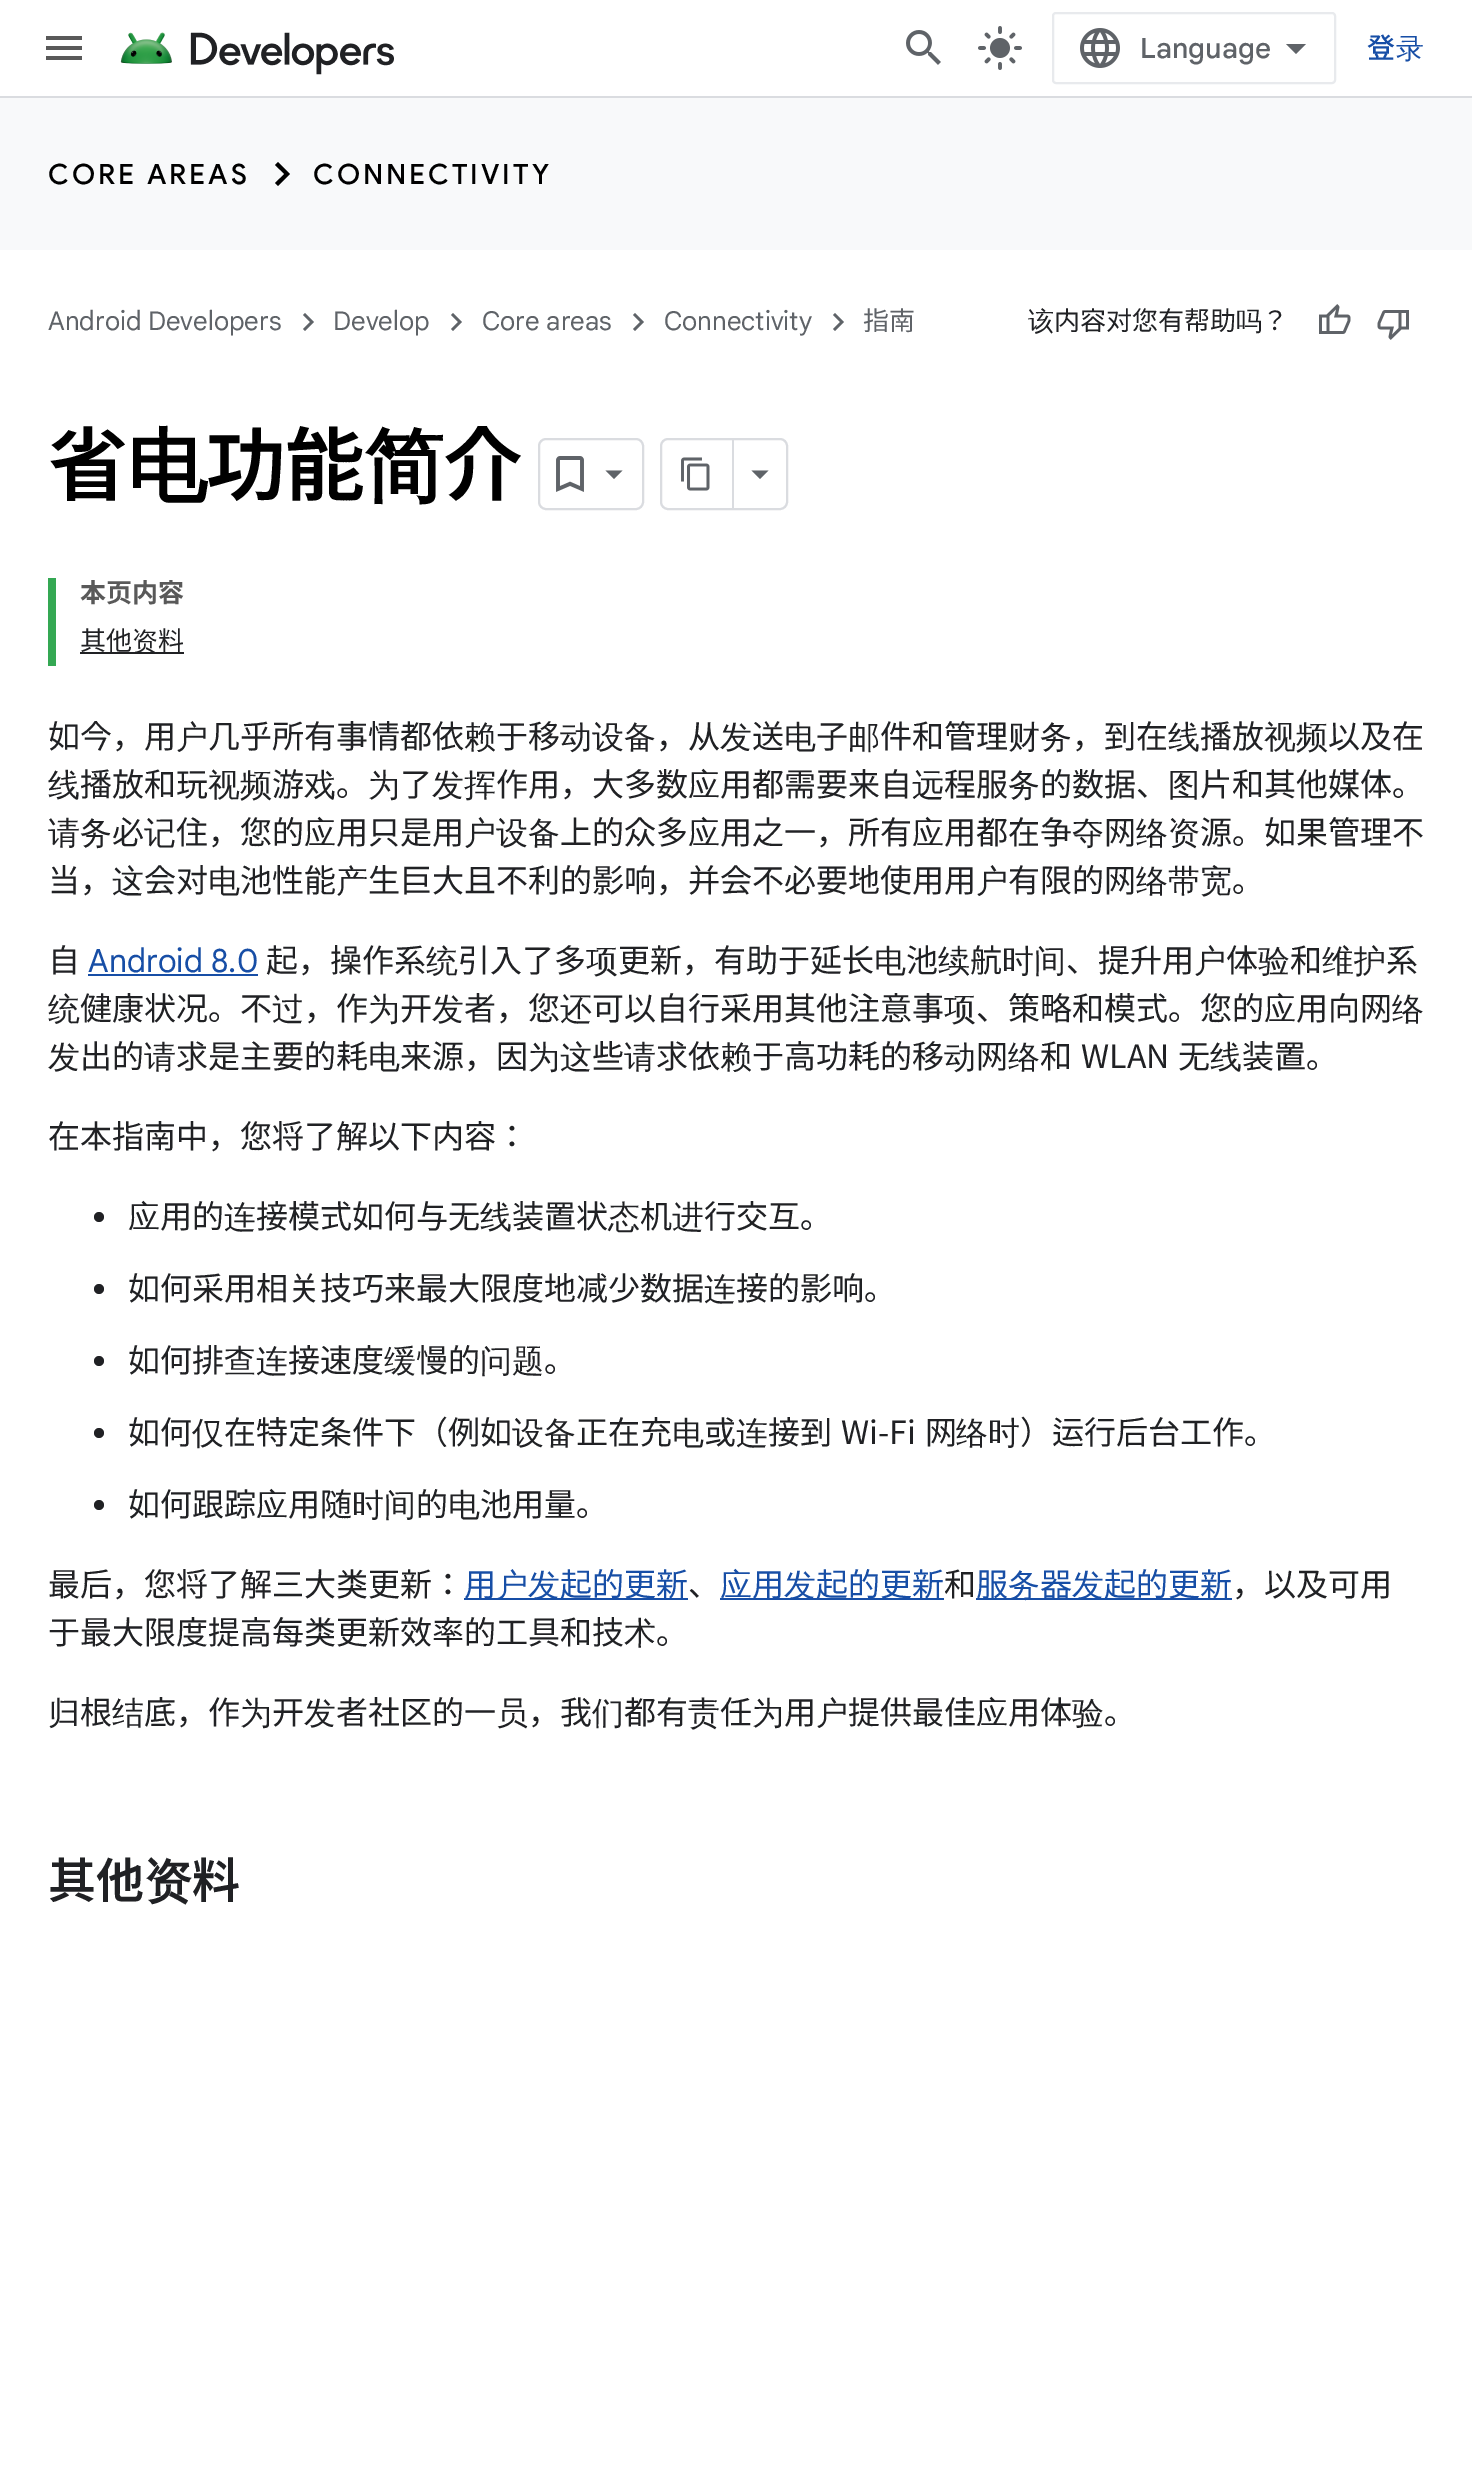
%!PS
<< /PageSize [1472 2491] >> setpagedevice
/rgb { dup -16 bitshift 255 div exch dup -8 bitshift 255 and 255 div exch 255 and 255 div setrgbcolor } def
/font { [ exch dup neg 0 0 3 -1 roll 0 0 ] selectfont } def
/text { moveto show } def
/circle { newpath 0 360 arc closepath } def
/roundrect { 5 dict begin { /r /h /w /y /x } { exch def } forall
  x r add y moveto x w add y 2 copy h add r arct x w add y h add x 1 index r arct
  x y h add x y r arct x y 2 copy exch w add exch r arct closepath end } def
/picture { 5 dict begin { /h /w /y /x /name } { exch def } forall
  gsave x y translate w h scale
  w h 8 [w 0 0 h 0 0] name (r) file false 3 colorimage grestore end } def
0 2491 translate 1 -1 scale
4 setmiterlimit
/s1 { /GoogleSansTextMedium-Medium 28 font 16#5F6368 rgb } def
/s2 { /NotoSansJP-Medium 28 font 16#174EA6 rgb } def
/s3 { /WenQuanYiZenHei-Medium 28 font 16#174EA6 rgb } def
/s4 { /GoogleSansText-Regular 26 font 16#5F6368 rgb } def
/s5 { /NotoSansJP-Regular 26 font 16#5F6368 rgb } def
/s6 { /WenQuanYiZenHei-Medium 26 font 16#202124 rgb } def
/s7 { /NotoSansJP-Regular 26 font 16#202124 rgb } def
/s8 { /NotoSansKR-Regular 26 font 16#202124 rgb } def
/s9 { /NotoSansJP-Bold 26 font 16#595959 rgb } def
/s10 { /NotoSansJP-Regular 32 font 16#202124 rgb } def
/s11 { /WenQuanYiZenHei-Medium 32 font 16#202124 rgb } def
/s12 { /NotoSansKR-Regular 32 font 16#202124 rgb } def
/s13 { /GoogleSansText-Regular 32 font 16#174EA6 rgb } def
/s14 { /NotoSansJP-Regular 32 font 16#174EA6 rgb } def
/s15 { /WenQuanYiZenHei-Medium 32 font 16#174EA6 rgb } def
/s16 { /NotoSansJP-SemiBold 48 font 16#202124 rgb } def
/s17 { /WenQuanYiZenHei-Bold 48 font 16#202124 rgb } def
16#FFFFFF rgb
0 0 1472 2491 rectfill
16#DADCE0 rgb
0 96 1472 2 rectfill
16#595959 rgb
46 36 moveto 82 36 lineto 82 40 lineto 46 40 lineto closepath 46 50 moveto 46 46 lineto 82 46 lineto 82 50 lineto closepath 46 60 moveto 46 56 lineto 82 56 lineto 82 60 lineto closepath fill
(pic1.raw) 120 32 274 43 picture
(pic2.raw) 906 30 35 35 picture
(pic3.raw) 978 26 44 44 picture
16#E8EAED rgb
2 setlinewidth
1053 13 282 70 3 roundrect stroke
(pic4.raw) 1080 28 40 40 picture
s1
(Language) 1140 58 text
1296 54 moveto 1286 44 lineto 1306 44 lineto closepath fill
s2
(登) 1367 58 text
s3
(录) 1396 58 text
16#F8F9FA rgb
0 98 1472 152 rectfill
/GoogleSans-Medium 28 font
16#000000 rgb
48 184 moveto 3 0 (CORE AREAS) ashow
278 162 moveto 290 174 lineto 278 186 lineto 275 183 lineto 284.5 174 lineto 275 165 lineto closepath fill
313 184 moveto 3 0 (CONNECTIVITY) ashow
s4
(Android Developers) 48 330 text
305 313 moveto 314 322 lineto 305 331 lineto 303 329 lineto 310 322 lineto 303 315 lineto closepath fill
(Develop) 333 330 text
453 313 moveto 462 322 lineto 453 331 lineto 451 329 lineto 458 322 lineto 451 315 lineto closepath fill
(Core areas) 482 330 text
635 313 moveto 644 322 lineto 635 331 lineto 633 329 lineto 640 322 lineto 633 315 lineto closepath fill
(Connectivity) 664 330 text
835 313 moveto 844 322 lineto 835 331 lineto 833 329 lineto 840 322 lineto 833 315 lineto closepath fill
s5
(指南) 863 330 text
s6
(该) 1028 330 text
s7
(内容) 1054 330 text
s8
(对) 1106 330 text
s7
(您有帮助) 1132 330 text
s6
(吗) 1236 330 text
s7
(？) 1262 330 text
(pic5.raw) 1319 304 32 30 picture
(pic6.raw) 1377 310 32 30 picture
/NotoSansJP-SemiBold 80 font
16#000000 rgb
48 494 moveto -1 0 (省) ashow
/WenQuanYiZenHei-Bold 80 font
127 494 moveto -1 0 (电) ashow
/NotoSansJP-SemiBold 80 font
206 494 moveto -1 0 (功能) ashow
/WenQuanYiZenHei-Bold 80 font
364 494 moveto -1 0 (简) ashow
/NotoSansJP-SemiBold 80 font
443 494 moveto -1 0 (介) ashow
16#DADCE0 rgb
539 439 104 70 7 roundrect stroke
(pic7.raw) 556 456 28 36 picture
16#5F6368 rgb
605.5 470.5 moveto 622.5 470.5 lineto 614 479 lineto closepath fill
16#DADCE0 rgb
661 439 126 70 7 roundrect stroke
732 440 2 68 rectfill
(pic8.raw) 681 457 29 34 picture
16#5F6368 rgb
751.5 470.5 moveto 768.5 470.5 lineto 760 479 lineto closepath fill
16#34A853 rgb
48 578 8 88 rectfill
s9
(本页内容) 80 602 text
s7
(其他) 80 650 text
80 652 104 2 rectfill
s6
(资) 132 650 text
s7
(料) 158 650 text
s10
(如今，用) 48 748 text
s11
(户) 176 748 text
s10
(几乎所有事情都依) 208 748 text
s11
(赖) 464 748 text
s10
(于移) 496 748 text
s11
(动设备) 560 748 text
s10
(，从) 656 748 text
s11
(发) 720 748 text
s10
(送) 752 748 text
s11
(电) 784 748 text
s10
(子) 816 748 text
s11
(邮) 848 748 text
s10
(件和管理) 880 748 text
s11
(财务) 1008 748 text
s10
(，到在) 1072 748 text
s11
(线) 1168 748 text
s10
(播放) 1200 748 text
s11
(视频) 1264 748 text
s10
(以及在) 1328 748 text
s11
(线) 48 796 text
s10
(播放和玩) 80 796 text
s11
(视频) 208 796 text
s10
(游) 272 796 text
s11
(戏) 304 796 text
s10
(。) 336 796 text
s11
(为) 368 796 text
s10
(了) 400 796 text
s11
(发挥) 432 796 text
s10
(作用，大多数) 496 796 text
s11
(应) 688 796 text
s10
(用都需要来自) 720 796 text
s11
(远) 912 796 text
s10
(程服) 944 796 text
s11
(务) 1008 796 text
s10
(的数据、) 1040 796 text
s11
(图) 1168 796 text
s10
(片和其他媒体。) 1200 796 text
s11
(请务) 48 844 text
s10
(必) 112 844 text
s11
(记) 144 844 text
s10
(住，您的) 176 844 text
s11
(应) 304 844 text
s10
(用只是用) 336 844 text
s11
(户设备) 464 844 text
s10
(上的众多) 560 844 text
s11
(应) 688 844 text
s10
(用之一，所有) 720 844 text
s11
(应) 912 844 text
s10
(用都在争) 944 844 text
s11
(夺) 1072 844 text
s10
(网) 1104 844 text
s11
(络资) 1136 844 text
s10
(源。如果管理不) 1200 844 text
(当，) 48 892 text
s11
(这) 112 892 text
s10
(会) 144 892 text
s12
(对) 176 892 text
s11
(电) 208 892 text
s10
(池性能) 240 892 text
s11
(产) 336 892 text
s10
(生巨大且不利的影响，并会不必要地使用用) 368 892 text
s11
(户) 976 892 text
s10
(有限的网) 1008 892 text
s11
(络带宽) 1136 892 text
s10
(。) 1232 892 text
(自) 48 972 text
s13
(Android 8.0) 88 972 text
88 974 170 2 rectfill
s10
(起，操作系) 266 972 text
s11
(统) 426 972 text
s10
(引入了多) 458 972 text
s11
(项) 586 972 text
s10
(更新，有助于延长) 618 972 text
s11
(电) 874 972 text
s10
(池) 906 972 text
s11
(续) 938 972 text
s10
(航) 970 972 text
s11
(时间) 1002 972 text
s10
(、提升用) 1066 972 text
s11
(户) 1194 972 text
s10
(体) 1226 972 text
s11
(验) 1258 972 text
s10
(和) 1290 972 text
s11
(维护) 1322 972 text
s10
(系) 1386 972 text
s11
(统) 48 1020 text
s10
(健康状况。不) 80 1020 text
s11
(过) 272 1020 text
s10
(，作) 304 1020 text
s11
(为) 368 1020 text
s10
(开) 400 1020 text
s11
(发) 432 1020 text
s10
(者，您) 464 1020 text
s11
(还) 560 1020 text
s10
(可以自行采用其他注意事) 592 1020 text
s11
(项) 944 1020 text
s10
(、策略和模式。您的) 976 1020 text
s11
(应) 1264 1020 text
s10
(用向网) 1296 1020 text
s11
(络) 1392 1020 text
(发) 48 1068 text
s10
(出的) 80 1068 text
s11
(请) 144 1068 text
s10
(求是主要的耗) 176 1068 text
s11
(电) 368 1068 text
s10
(来源，因) 400 1068 text
s11
(为这) 528 1068 text
s10
(些) 592 1068 text
s11
(请) 624 1068 text
s10
(求依) 656 1068 text
s11
(赖) 720 1068 text
s10
(于高功耗的移) 752 1068 text
s11
(动) 944 1068 text
s10
(网) 976 1068 text
s11
(络) 1008 1068 text
/NotoSansJP-Regular 32 font
1040 1068 moveto 2 0 32 (和 WLAN 无) widthshow
s11
(线) 1210 1068 text
s10
(装置。) 1242 1068 text
(在本指南中，您将了解以下内容：) 48 1148 text
99 1217 5 circle fill
s11
(应) 128 1228 text
s10
(用的) 160 1228 text
s11
(连) 224 1228 text
s10
(接模式如何与无) 256 1228 text
s11
(线) 480 1228 text
s10
(装置状) 512 1228 text
s11
(态) 608 1228 text
s10
(机) 640 1228 text
s11
(进) 672 1228 text
s10
(行交互。) 704 1228 text
99 1289 5 circle fill
(如何采用相关技巧来最大限度地减少数据) 128 1300 text
s11
(连) 704 1300 text
s10
(接的影响。) 736 1300 text
99 1361 5 circle fill
(如何排) 128 1372 text
s11
(查连) 224 1372 text
s10
(接速度) 288 1372 text
s11
(缓) 384 1372 text
s10
(慢的) 416 1372 text
s11
(问题) 480 1372 text
s10
(。) 544 1372 text
99 1433 5 circle fill
(如何) 128 1444 text
s11
(仅) 192 1444 text
s10
(在特定条件下（例如) 224 1444 text
s11
(设备) 512 1444 text
s10
(正在充) 576 1444 text
s11
(电) 672 1444 text
s10
(或) 704 1444 text
s11
(连) 736 1444 text
/NotoSansJP-Regular 32 font
768 1444 moveto 2 0 32 (接到 Wi-Fi 网) widthshow
s11
(络时) 956 1444 text
s10
(）运行后台工作。) 1020 1444 text
99 1505 5 circle fill
(如何跟踪) 128 1516 text
s11
(应) 256 1516 text
s10
(用随) 288 1516 text
s11
(时间) 352 1516 text
s10
(的) 416 1516 text
s11
(电) 448 1516 text
s10
(池用量。) 480 1516 text
(最后，您将了解三大类更新：) 48 1596 text
16#174EA6 rgb
464 1598 224 2 rectfill
(用) 464 1596 text
s15
(户发) 496 1596 text
s14
(起的更新) 560 1596 text
s10
(、) 688 1596 text
16#174EA6 rgb
720 1598 224 2 rectfill
s15
(应) 720 1596 text
s14
(用) 752 1596 text
s15
(发) 784 1596 text
s14
(起的更新) 816 1596 text
s10
(和) 944 1596 text
16#174EA6 rgb
976 1598 256 2 rectfill
(服) 976 1596 text
s15
(务) 1008 1596 text
s14
(器) 1040 1596 text
s15
(发) 1072 1596 text
s14
(起的更新) 1104 1596 text
s10
(，以及可用) 1232 1596 text
(于最大限度提高每类更新效率的工具和技) 48 1644 text
s11
(术) 624 1644 text
s10
(。) 656 1644 text
s11
(归) 48 1724 text
s10
(根) 80 1724 text
s11
(结) 112 1724 text
s10
(底，作) 144 1724 text
s11
(为) 240 1724 text
s10
(开) 272 1724 text
s11
(发) 304 1724 text
s10
(者社区的一) 336 1724 text
s11
(员) 496 1724 text
s10
(，我) 528 1724 text
s11
(们) 592 1724 text
s10
(都有) 624 1724 text
s11
(责) 688 1724 text
s10
(任) 720 1724 text
s11
(为) 752 1724 text
s10
(用) 784 1724 text
s11
(户) 816 1724 text
s10
(提供最佳) 848 1724 text
s11
(应) 976 1724 text
s10
(用体) 1008 1724 text
s11
(验) 1072 1724 text
s10
(。) 1104 1724 text
s16
(其他) 48 1898 text
s17
(资) 144 1898 text
s16
(料) 192 1898 text
showpage
